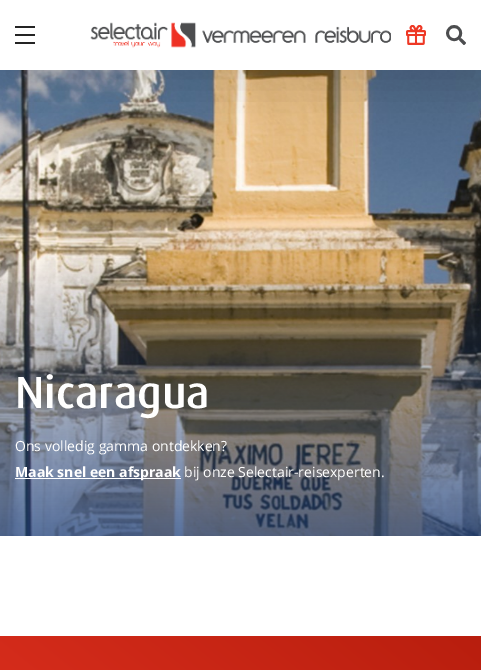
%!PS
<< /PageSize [481 670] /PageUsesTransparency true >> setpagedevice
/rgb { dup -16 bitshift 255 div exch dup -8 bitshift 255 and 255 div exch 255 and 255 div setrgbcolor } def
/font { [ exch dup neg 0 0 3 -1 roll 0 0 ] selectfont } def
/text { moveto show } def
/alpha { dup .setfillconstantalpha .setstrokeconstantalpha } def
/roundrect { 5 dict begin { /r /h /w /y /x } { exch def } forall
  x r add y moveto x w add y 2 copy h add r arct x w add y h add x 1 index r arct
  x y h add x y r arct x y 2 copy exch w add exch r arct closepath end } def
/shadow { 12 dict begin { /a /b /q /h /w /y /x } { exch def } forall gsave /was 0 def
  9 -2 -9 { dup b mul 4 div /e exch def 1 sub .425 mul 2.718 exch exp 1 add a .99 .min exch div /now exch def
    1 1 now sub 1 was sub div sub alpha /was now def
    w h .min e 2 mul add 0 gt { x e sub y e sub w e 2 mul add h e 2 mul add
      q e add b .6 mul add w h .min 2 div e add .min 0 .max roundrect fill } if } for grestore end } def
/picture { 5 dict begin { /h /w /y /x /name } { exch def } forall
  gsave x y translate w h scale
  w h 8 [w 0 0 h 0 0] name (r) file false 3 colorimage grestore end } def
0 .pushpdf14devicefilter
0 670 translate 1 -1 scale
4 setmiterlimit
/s1 { /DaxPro-Medium 45 font 16#FFFFFF rgb } def
/s2 { /OpenSans-Regular 14 font 16#FFFFFF rgb } def
/s3 { /OpenSans-Bold 14 font 16#FFFFFF rgb } def
16#FFFFFF rgb
0 0 481 670 rectfill
(pic4.raw) 0 70 481 466 picture
16#000000 rgb
0 15 481 70 0 22.5 0.12 shadow
16#FFFFFF rgb
0 0 481 70 rectfill
16#242424 rgb
15 34 20 2 rectfill
15 26 20 2 rectfill
15 42 20 2 rectfill
(pic1.raw) 90 22 301 26 picture
(pic2.raw) 406 25 20 20 picture
(pic3.raw) 446 25 20 20 picture
s1
(Nicaragua) 15 408 text
s2
(Ons volledig gamma ontdekken?) 15 451 text
15 478 166 1 rectfill
s3
(Maak snel een afspraak) 15 477 text
s2
(bij onze Selectair-reisexperten.) 184 477 text
gsave 0 636 moveto 481 636 lineto 481 670 lineto 0 670 lineto closepath clip newpath
<< /ShadingType 2 /ColorSpace /DeviceRGB /Coords [54 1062 427 593] /Extend [true true] /Function << /FunctionType 2 /Domain [0 1] /C0 [0.933 0.22 0.145] /C1 [0.722 0.118 0.055] /N 1 >> >> shfill grestore
.poppdf14devicefilter showpage
